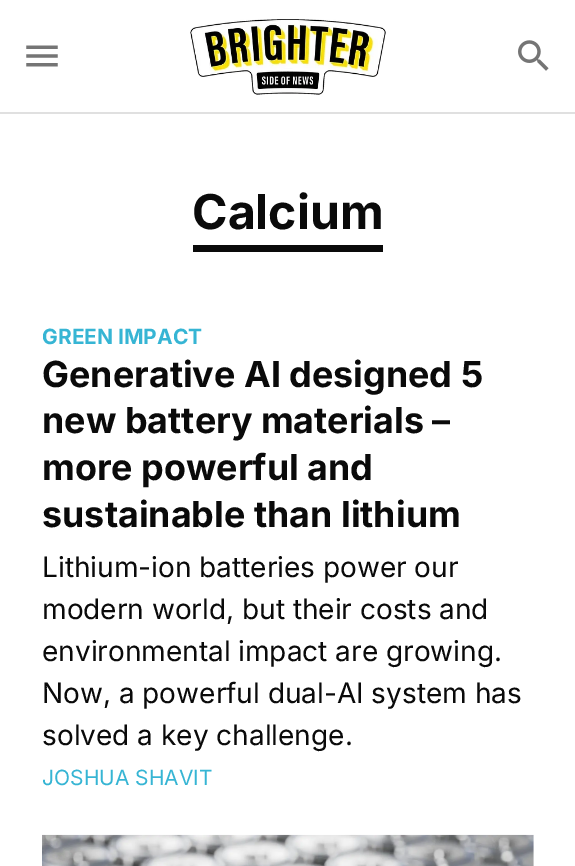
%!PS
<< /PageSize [575 866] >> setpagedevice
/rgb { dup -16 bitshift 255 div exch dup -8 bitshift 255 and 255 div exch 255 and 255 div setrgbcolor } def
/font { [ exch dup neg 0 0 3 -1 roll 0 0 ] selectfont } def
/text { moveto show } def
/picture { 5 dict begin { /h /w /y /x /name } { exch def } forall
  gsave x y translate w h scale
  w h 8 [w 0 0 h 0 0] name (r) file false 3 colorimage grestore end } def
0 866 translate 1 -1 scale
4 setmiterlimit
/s1 { /Inter-Bold 48 font 16#0A0A0A rgb } def
/s2 { /Inter-Bold 21 font 16#36B5D4 rgb } def
/s3 { /Inter-Bold 35.9 font 16#0A0A0A rgb } def
/s4 { /Inter-Regular 28 font 16#0A0A0A rgb } def
/s5 { /Inter-Regular 21 font 16#36B5D4 rgb } def
16#FFFFFF rgb
0 0 575 866 rectfill
(pic1.raw) 26 45 32 22 picture
(pic2.raw) 190 19 196 76 picture
(pic3.raw) 518 40 31 31 picture
16#E0E0E0 rgb
0 112 575 2 rectfill
16#0A0A0A rgb
193 245 190 7 rectfill
s1
(Calcium) 192 229 text
s2
(GREEN IMPACT) 42 344 text
s3
(Generative AI designed 5) 42 387 text
(new battery materials –) 42 433 text
(more powerful and) 42 480 text
(sustainable than lithium) 42 527 text
s4
(Lithium-ion batteries power our) 42 577 text
(modern world, but their costs and) 42 619 text
(environmental impact are growing.) 42 661 text
(Now, a powerful dual-AI system has) 42 703 text
(solved a key challenge.) 42 745 text
s5
(JOSHUA SHAVIT) 42 785 text
(pic4.raw) 42 834 492 32 picture
showpage
